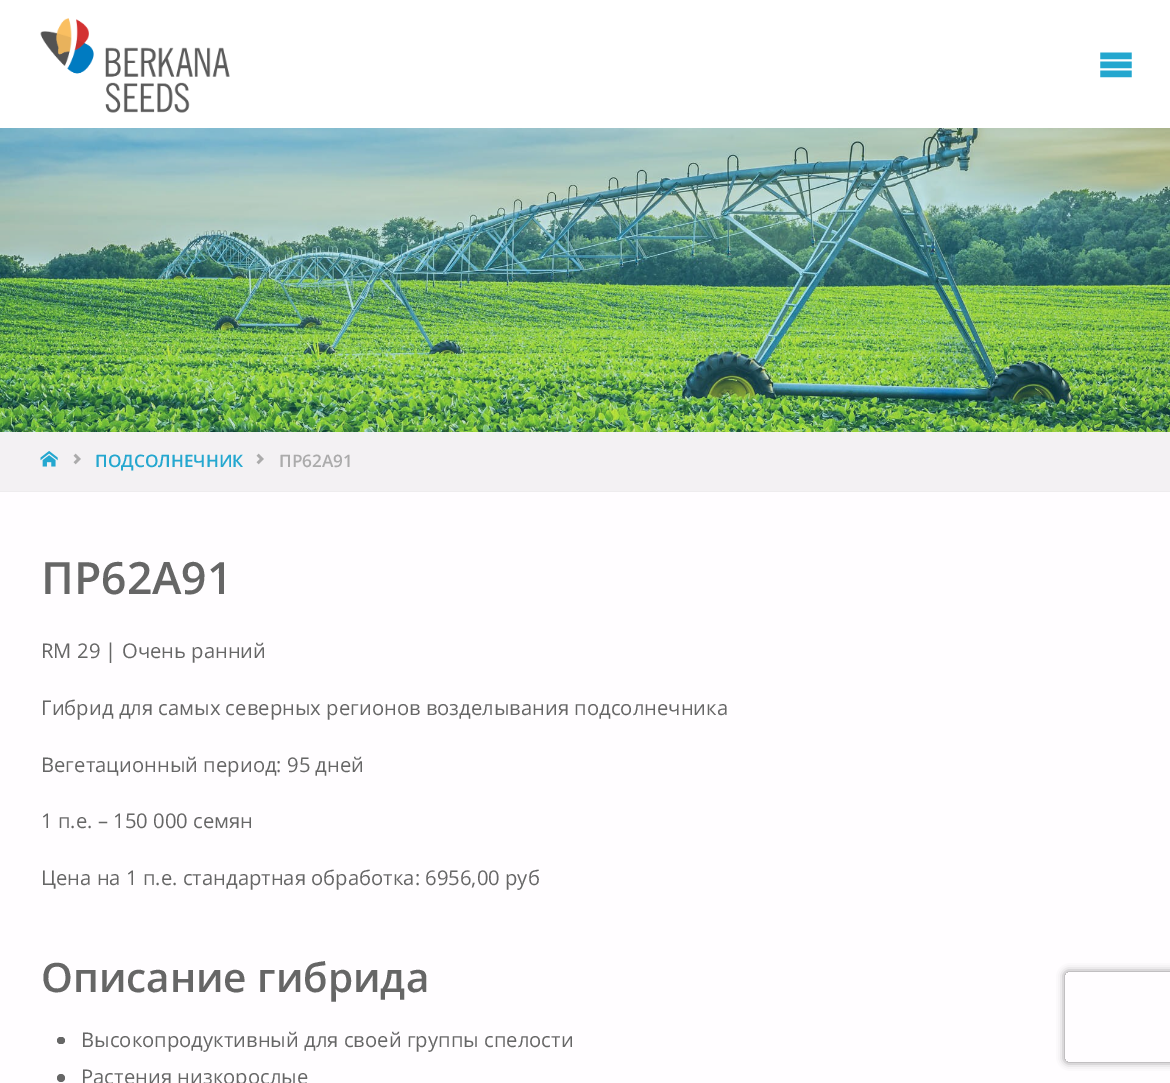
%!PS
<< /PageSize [1170 1083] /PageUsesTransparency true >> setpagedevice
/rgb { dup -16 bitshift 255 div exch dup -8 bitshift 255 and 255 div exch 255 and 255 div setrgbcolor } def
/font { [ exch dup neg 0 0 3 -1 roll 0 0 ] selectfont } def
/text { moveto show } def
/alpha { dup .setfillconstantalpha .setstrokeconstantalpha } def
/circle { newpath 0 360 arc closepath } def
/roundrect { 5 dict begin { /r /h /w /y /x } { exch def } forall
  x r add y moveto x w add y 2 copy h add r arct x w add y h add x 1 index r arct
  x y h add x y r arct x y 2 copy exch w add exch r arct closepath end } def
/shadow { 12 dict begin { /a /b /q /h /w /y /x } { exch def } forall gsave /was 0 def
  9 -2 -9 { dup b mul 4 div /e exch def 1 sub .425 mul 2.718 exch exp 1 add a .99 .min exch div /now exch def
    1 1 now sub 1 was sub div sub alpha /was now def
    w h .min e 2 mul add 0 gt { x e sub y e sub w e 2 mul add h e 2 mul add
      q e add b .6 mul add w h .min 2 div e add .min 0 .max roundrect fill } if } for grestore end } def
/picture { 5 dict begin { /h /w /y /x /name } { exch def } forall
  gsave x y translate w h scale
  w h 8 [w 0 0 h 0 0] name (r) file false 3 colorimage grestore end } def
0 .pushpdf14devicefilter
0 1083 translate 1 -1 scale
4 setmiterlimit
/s1 { /OpenSans-SemiBold 17.25 font 16#24A7CF rgb } def
/s2 { /OpenSans-SemiBold 17.25 font 16#ABABAB rgb } def
/s3 { /OpenSans-SemiBold 44.5 font 16#666666 rgb } def
/s4 { /OpenSans-Regular 20.25 font 16#666666 rgb } def
/s5 { /OpenSans-SemiBold 40.5 font 16#666666 rgb } def
16#F3F1F3 rgb
0 0 1170 1083 rectfill
16#FFFFFF rgb
0 0 1170 128 rectfill
(pic1.raw) 40 18 190 95 picture
(pic2.raw) 1100 52 32 26 picture
(pic3.raw) 0 128 1170 304 picture
16#EEECEE rgb
0 491 1170 1 rectfill
(pic4.raw) 40 451 18 16 picture
(pic5.raw) 73 453 8 12 picture
s1
(ПОДСОЛНЕЧНИК) 95 467 text
(pic5.raw) 256 453 8 12 picture
s2
(ПР62А91) 279 467 text
16#FFFDFF rgb
0 492 1170 591 rectfill
s3
(ПР62А91) 41 594 text
s4
(RM 29 | Очень ранний) 41 658 text
(Гибрид для самых северных регионов возделывания подсолнечника) 41 715 text
(Вегетационный период: 95 дней) 41 772 text
(1 п.е. – 150 000 семян) 41 828 text
(Цена на 1 п.е. стандартная обработка: 6956,00 руб) 41 885 text
s5
(Описание гибрида) 41 992 text
57 1037 8 7 3.5 roundrect fill
s4
(Высокопродуктивный для своей группы спелости) 81 1047 text
61 1078 4 circle fill
(Растения низкорослые) 81 1084 text
gsave
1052 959 moveto 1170 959 lineto 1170 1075 lineto 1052 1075 lineto closepath 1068 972 moveto 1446 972 lineto 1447.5 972 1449 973.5 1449 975 curveto 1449 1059 lineto 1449 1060.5 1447.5 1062 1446 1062 curveto 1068 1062 lineto 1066.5 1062 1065 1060.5 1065 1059 curveto 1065 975 lineto 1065 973.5 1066.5 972 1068 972 curveto closepath eoclip newpath
16#808080 rgb
1065 972 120 90 3 4 1 shadow
grestore
.poppdf14devicefilter showpage
